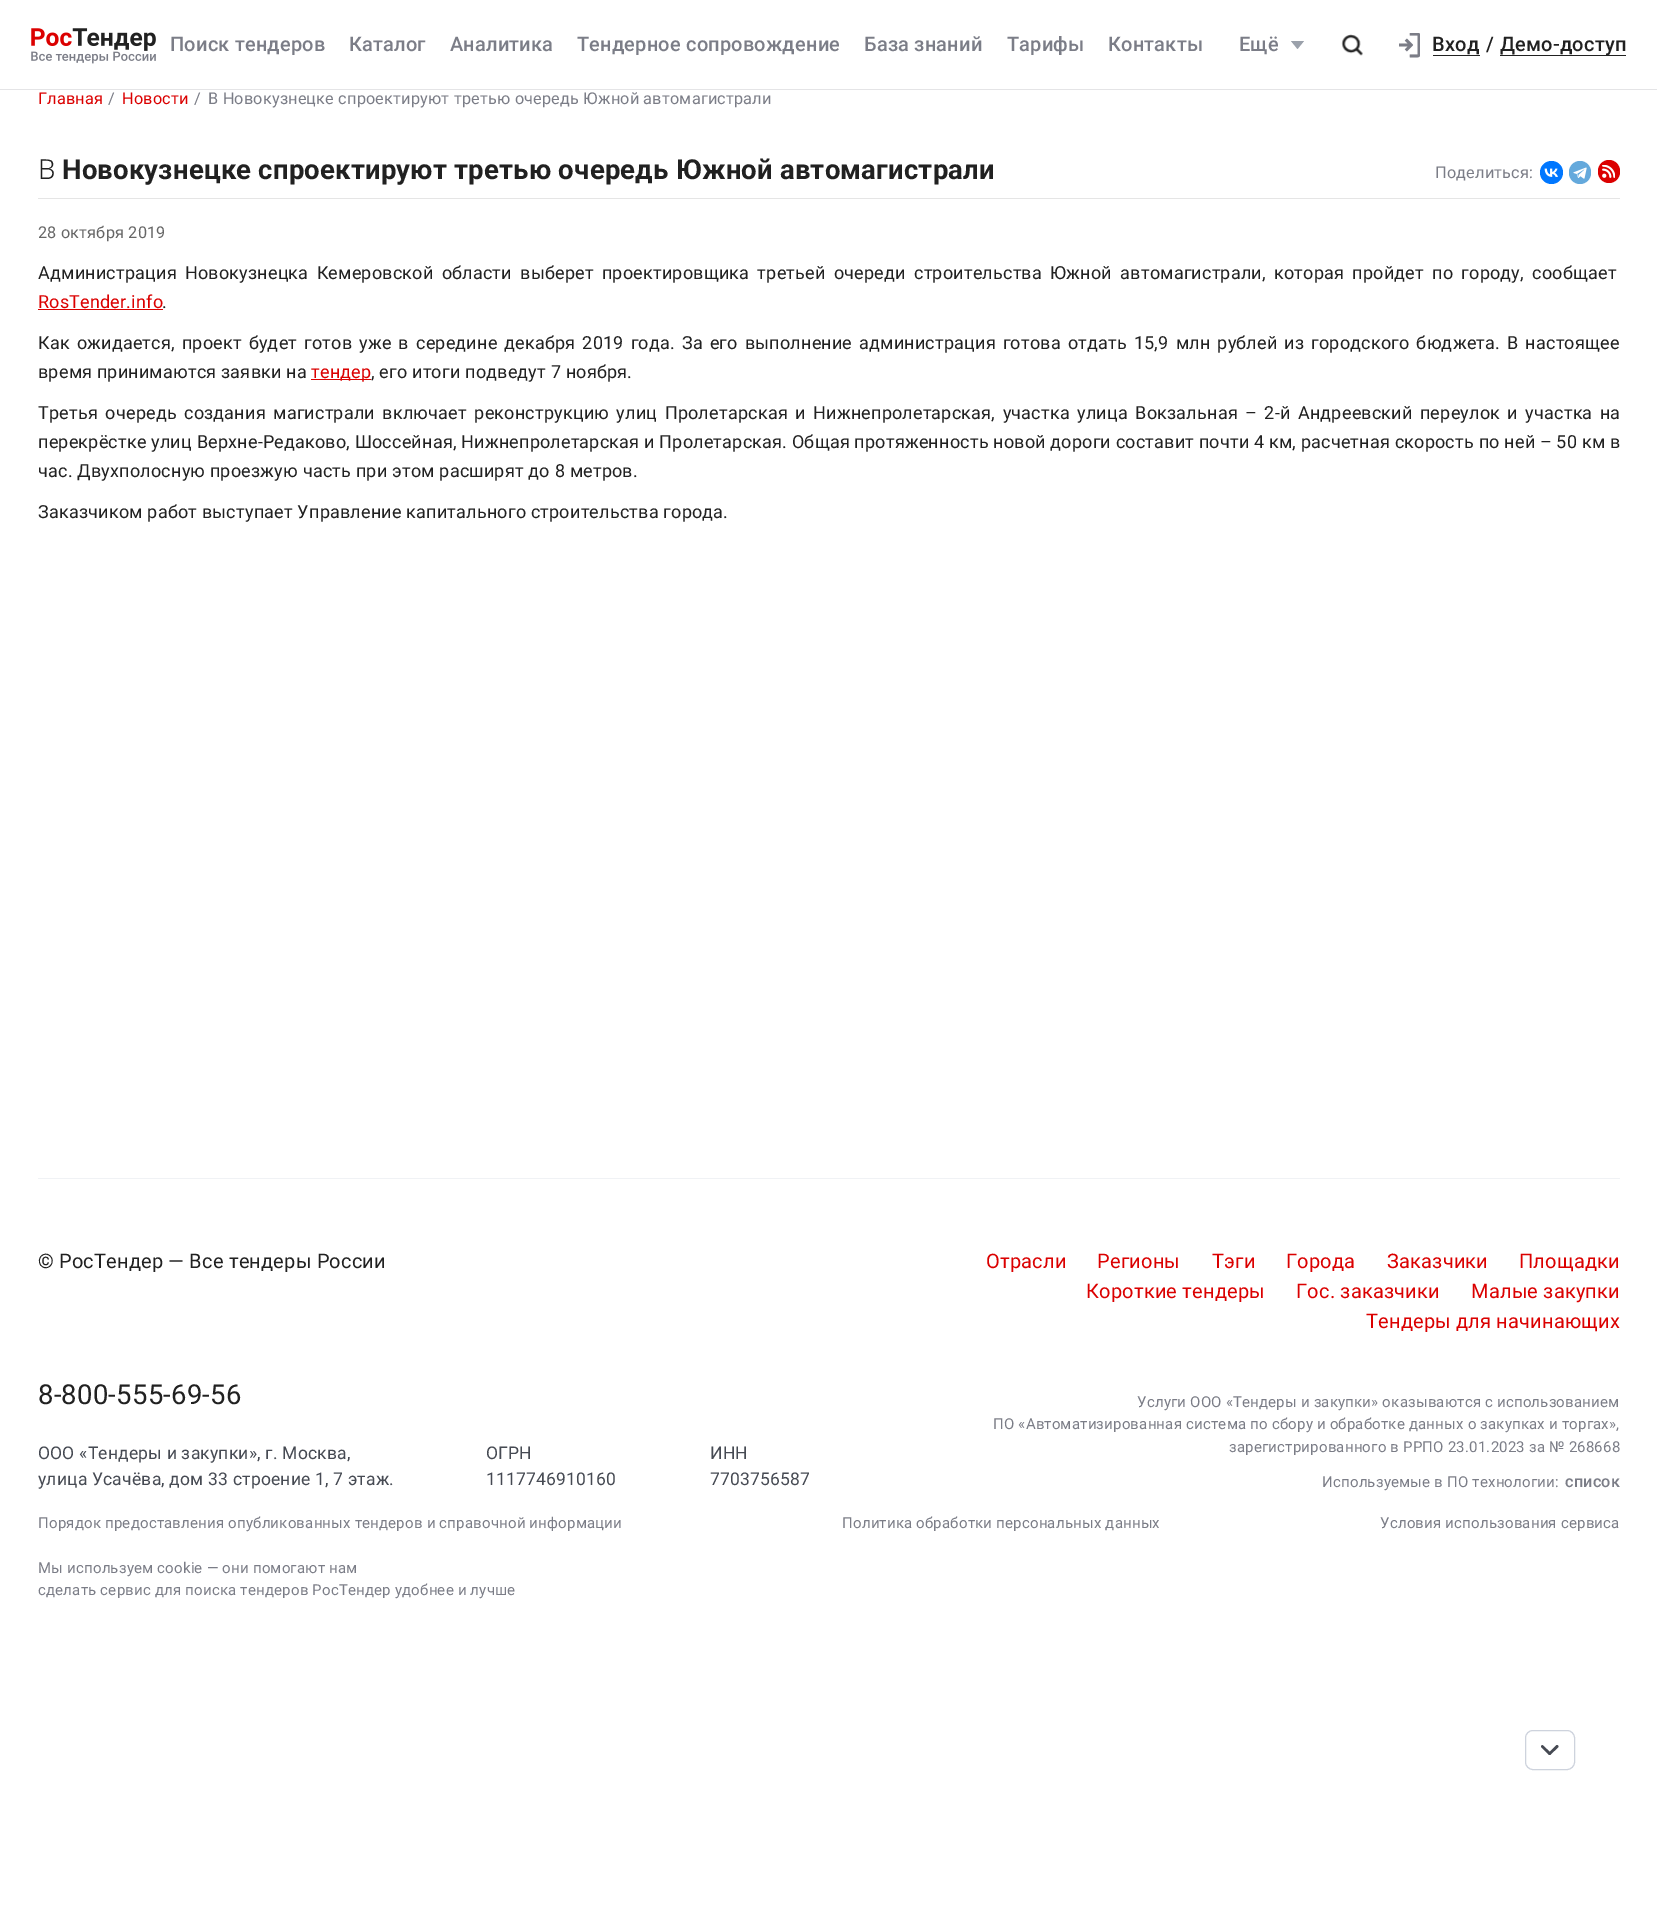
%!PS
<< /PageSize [1657 1932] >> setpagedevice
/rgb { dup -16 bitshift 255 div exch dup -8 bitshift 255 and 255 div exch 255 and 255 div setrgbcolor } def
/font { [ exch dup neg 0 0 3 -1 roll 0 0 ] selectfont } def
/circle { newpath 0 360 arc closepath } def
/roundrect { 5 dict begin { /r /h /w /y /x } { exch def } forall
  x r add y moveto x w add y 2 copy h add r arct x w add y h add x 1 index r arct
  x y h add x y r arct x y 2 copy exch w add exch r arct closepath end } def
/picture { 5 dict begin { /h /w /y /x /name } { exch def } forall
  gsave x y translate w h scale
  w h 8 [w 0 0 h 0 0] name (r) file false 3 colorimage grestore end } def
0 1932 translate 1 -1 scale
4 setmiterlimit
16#FFFFFF rgb
0 0 1657 1932 rectfill
(pic1.raw) 31 28 125 36 picture
/Roboto-Medium 20 font
16#7B7D87 rgb
170 51 moveto 0.2 0 (Поиск тендеров) ashow
349 51 moveto 0.2 0 (Каталог) ashow
450 51 moveto 0.2 0 (Аналитика) ashow
577 51 moveto 0.2 0 (Тендерное сопровождение) ashow
864 51 moveto 0.2 0 (База знаний) ashow
1007 51 moveto 0.2 0 (Тарифы) ashow
1108 51 moveto 0.2 0 (Контакты) ashow
1239 51 moveto 0.2 0 (Ещё) ashow
16#9BA1AB rgb
1291 41 moveto 1304 41 lineto 1297.5 49 lineto closepath fill
(pic2.raw) 1341 34 22 22 picture
(pic3.raw) 1399 33 21 25 picture
16#212121 rgb
1433 55 47 1 rectfill
1432 51 moveto 0.2 0 (Вход) ashow
1486 51 moveto 0.2 0 (/) ashow
1500 55 126 1 rectfill
1500 51 moveto 0.2 0 (Демо-доступ) ashow
16#E4E4E6 rgb
0 89 1657 1 rectfill
/Roboto-Regular 16.25 font
16#DB0000 rgb
38 104 moveto 0.2 0 (Главная) ashow
16#7B7D87 rgb
108 104 moveto 0.2 0 (/) ashow
16#DB0000 rgb
122 104 moveto 0.2 0 (Новости) ashow
16#7B7D87 rgb
194 104 moveto 0.2 0 (/) ashow
208 104 moveto 0.2 0 (В Новокузнецке спроектируют третью очередь Южной автомагистрали) ashow
16#E5E5E5 rgb
38 198 1582 1 rectfill
/NotoSans-Light 27.5 font
16#212121 rgb
38 179 moveto 0.2 0 (В) ashow
/Roboto-Bold 27.5 font
62 179 moveto 0.2 0 (Новокузнецке спроектируют третью очередь Южной автомагистрали) ashow
/Roboto-Regular 16.25 font
16#7B7D87 rgb
1435 178 moveto 0.2 0 (Поделиться:) ashow
16#0077FF rgb
1551.5 172.5 11.5 circle fill
(pic4.raw) 1544 168 14 9 picture
16#64A9DC rgb
1569 161 22 23 11 roundrect fill
(pic5.raw) 1573 167 14 12 picture
16#DB0000 rgb
1598 160 22 23 11 roundrect fill
(pic6.raw) 1602 165 13 13 picture
16#666666 rgb
38 238 moveto 0.2 0 (28 октября 2019) ashow
/Roboto-Regular 18 font
16#212121 rgb
38 279 moveto 3.6 0 32 0.2 0 (Администрация Новокузнецка Кемеровской области выберет проектировщика третьей очереди строительства Южной автомагистрали, которая пройдет по городу, сообщает) awidthshow
16#DB0000 rgb
38 308 moveto 0.2 0 (RosTender.info) ashow
38 309 125 1 rectfill
16#212121 rgb
162 308 moveto 0.2 0 (.) ashow
38 349 moveto 2.3 0 32 0.2 0 (Как ожидается, проект будет готов уже в середине декабря 2019 года. За его выполнение администрация готова отдать 15,9 млн рублей из городского бюджета. В настоящее) awidthshow
38 378 moveto 0.2 0 (время принимаются заявки на) ashow
16#DB0000 rgb
311 379 60 1 rectfill
311 378 moveto 0.2 0 (тендер) ashow
16#212121 rgb
371 378 moveto 0.2 0 (, его итоги подведут 7 ноября.) ashow
38 419 moveto 2.75 0 32 0.2 0 (Третья очередь создания магистрали включает реконструкцию улиц Пролетарская и Нижнепролетарская, участка улица Вокзальная – 2-й Андреевский переулок и участка на) awidthshow
38 448 moveto 0.2 0 (перекрёстке улиц Верхне-Редаково, Шоссейная, Нижнепролетарская и Пролетарская. Общая протяженность новой дороги составит почти 4 км, расчетная скорость по ней – 50 км в) ashow
38 477 moveto 0.2 0 (час. Двухполосную проезжую часть при этом расширят до 8 метров.) ashow
38 518 moveto 0.2 0 (Заказчиком работ выступает Управление капитального строительства города.) ashow
16#F0F2F5 rgb
38 1178 1582 1 rectfill
/Roboto-Regular 20 font
16#212121 rgb
38 1268 moveto 0.2 0 (© РосТендер — Все тендеры России) ashow
16#DB0000 rgb
986 1268 moveto 0.2 0 (Отрасли) ashow
1097 1268 moveto 0.2 0 (Регионы) ashow
1212 1268 moveto 0.2 0 (Тэги) ashow
1286 1268 moveto 0.2 0 (Города) ashow
1387 1268 moveto 0.2 0 (Заказчики) ashow
1519 1268 moveto 0.2 0 (Площадки) ashow
1086 1298 moveto 0.2 0 (Короткие тендеры) ashow
1296 1298 moveto 0.2 0 (Гос. заказчики) ashow
1471 1298 moveto 0.2 0 (Малые закупки) ashow
1366 1328 moveto 0.2 0 (Тендеры для начинающих) ashow
/Roboto-Regular 27.5 font
16#212121 rgb
38 1404 moveto 0.2 0 (8-800-555-69-56) ashow
/Roboto-Regular 17.5 font
16#464A53 rgb
38 1459 moveto 0.2 0 (ООО «Тендеры и закупки», г. Москва,) ashow
38 1485 moveto 0.2 0 (улица Усачёва, дом 33 строение 1, 7 этаж.) ashow
486 1459 moveto 0.2 0 (ОГРН) ashow
486 1485 moveto 0.2 0 (1117746910160) ashow
710 1459 moveto 0.2 0 (ИНН) ashow
710 1485 moveto 0.2 0 (7703756587) ashow
/Roboto-Regular 15 font
16#7B7D87 rgb
1137 1407 moveto 0.2 0 (Услуги ООО «Тендеры и закупки» оказываются с использованием) ashow
993 1429 moveto 0.2 0 (ПО «Автоматизированная система по сбору и обработке данных о закупках и торгах»,) ashow
1229 1452 moveto 0.2 0 (зарегистрированного в РРПО 23.01.2023 за № 268668) ashow
1322 1487 moveto 0.2 0 (Используемые в ПО технологии:) ashow
/Roboto-Medium 16.25 font
1565 1487 moveto 0.2 0 (список) ashow
/Roboto-Regular 15 font
38 1528 moveto 0.2 0 (Порядок предоставления опубликованных тендеров и справочной информации) ashow
842 1528 moveto 0.2 0 (Политика обработки персональных данных) ashow
1380 1528 moveto 0.2 0 (Условия использования сервиса) ashow
38 1573 moveto 0.2 0 (Мы используем cookie — они помогают нам) ashow
38 1595 moveto 0.2 0 (сделать сервис для поиска тендеров РосТендер удобнее и лучше) ashow
16#CED3DD rgb
1525.5 1730.5 49 39 7.5 roundrect stroke
16#464A53 rgb
1549 1752.5 moveto 1556 1745.5 lineto 1556.5 1745 1557.5 1745 1558 1745.5 curveto 1558.5 1746 1558.5 1747 1558 1747.5 curveto 1550.5 1754.5 lineto 1550 1755 1549.5 1755 1549 1754.5 curveto 1548.5 1754 1548.5 1753 1549 1752.5 curveto closepath fill
1543 1745.5 moveto 1550.5 1752.5 lineto 1551 1753 1551 1754 1550.5 1754.5 curveto 1550 1755 1549 1755 1548.5 1754.5 curveto 1541.5 1747.5 lineto 1541 1747 1541 1746 1541.5 1745.5 curveto 1542 1745 1542.5 1745 1543 1745.5 curveto closepath fill
showpage
